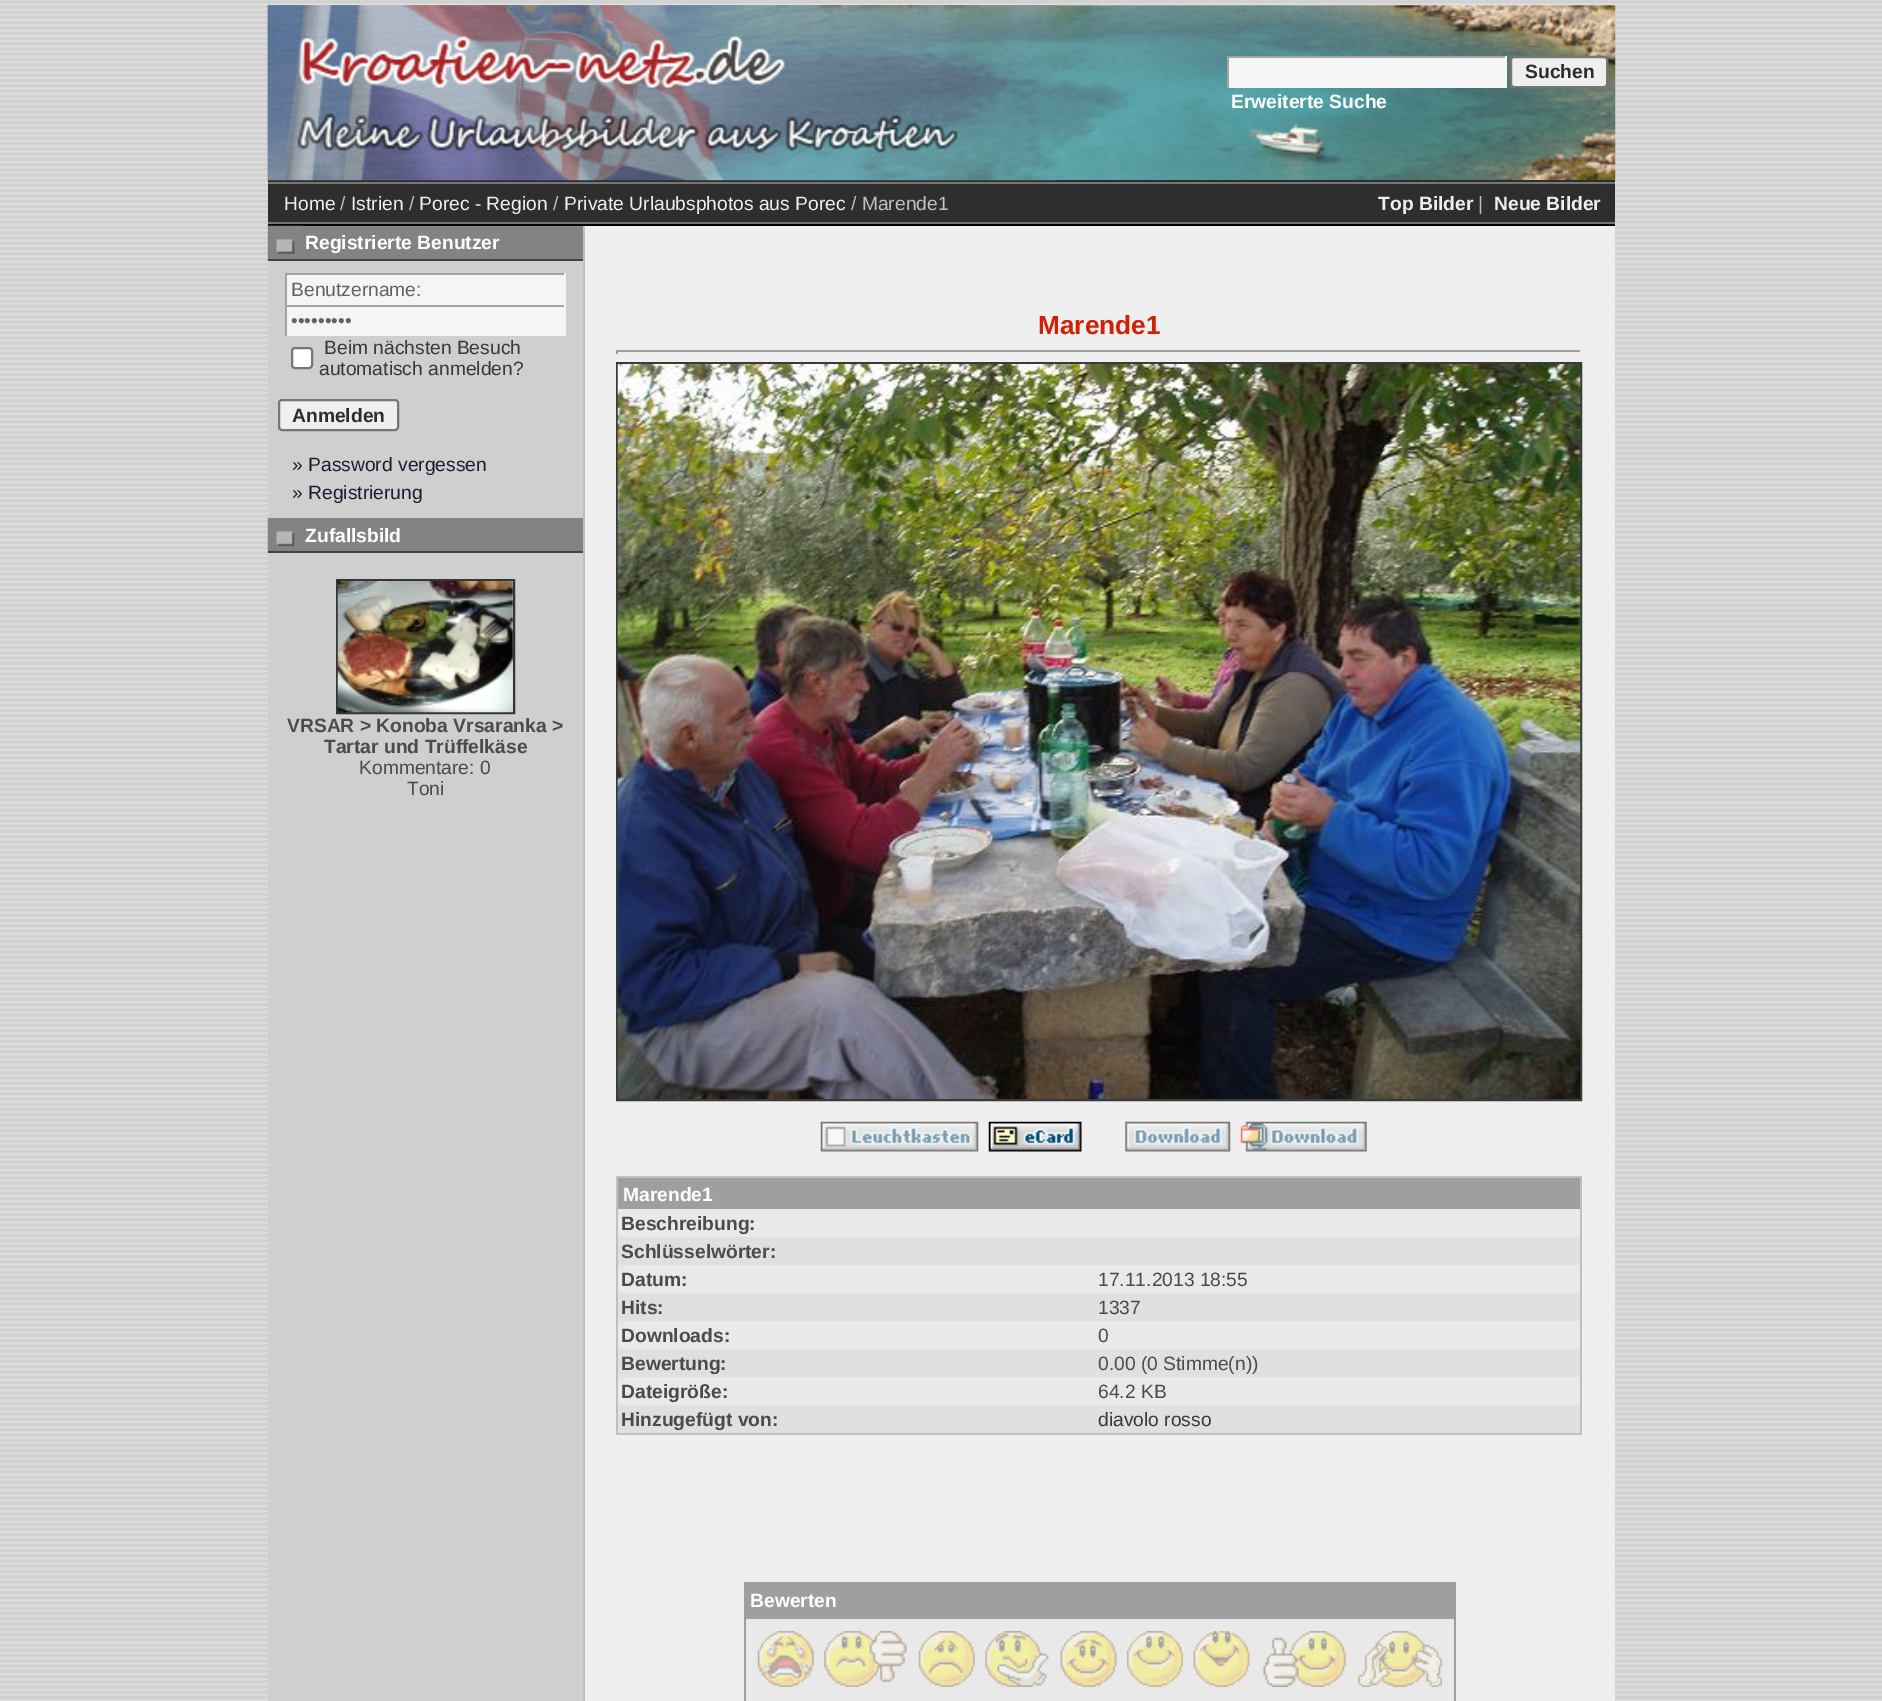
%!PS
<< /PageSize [1882 1701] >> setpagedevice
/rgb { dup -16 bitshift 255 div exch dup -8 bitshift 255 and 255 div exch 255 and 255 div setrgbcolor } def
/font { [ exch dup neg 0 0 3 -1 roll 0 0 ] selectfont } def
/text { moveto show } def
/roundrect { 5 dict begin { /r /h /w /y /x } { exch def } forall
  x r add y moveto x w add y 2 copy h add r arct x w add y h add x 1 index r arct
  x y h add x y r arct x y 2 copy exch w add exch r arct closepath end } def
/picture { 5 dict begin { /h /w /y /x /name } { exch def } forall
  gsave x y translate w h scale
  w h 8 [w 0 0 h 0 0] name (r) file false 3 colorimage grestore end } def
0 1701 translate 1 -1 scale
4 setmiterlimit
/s1 { /LiberationSans-Bold 19.25 font 16#2D2D2D rgb } def
/s2 { /LiberationSans-Bold 19.25 font 16#FFFFFF rgb } def
/s3 { /LiberationSans-Regular 19.25 font 16#EFEFEF rgb } def
/s4 { /LiberationSans-Regular 19.25 font 16#C0C0C0 rgb } def
/s5 { /LiberationSans-Bold 19.25 font 16#EFEFEF rgb } def
/s6 { /LiberationSans-Regular 19.25 font 16#646464 rgb } def
/s7 { /LiberationSans-Regular 19.25 font 16#3A3A3A rgb } def
/s8 { /LiberationSans-Regular 19.25 font 16#172033 rgb } def
/s9 { /LiberationSans-Bold 19.25 font 16#4B4B4B rgb } def
/s10 { /LiberationSans-Regular 19.25 font 16#4B4B4B rgb } def
/s11 { /LiberationSans-Bold 26.25 font 16#D22006 rgb } def
16#FFFFFF rgb
0 0 1882 1701 rectfill
(pic1.raw) 0 0 1882 1701 picture
(pic2.raw) 267 5 1349 176 picture
16#2D2D2D rgb
268 180 1347 2 rectfill
(pic3.raw) 267 5 789 176 picture
16#F5F5F5 rgb
1229 58 276 30 rectfill
16#A3A3A3 rgb
1227 56 280 2 rectfill
16#F5F5F5 rgb
1505 56 2 32 rectfill
16#A3A3A3 rgb
1227 56 2 32 rectfill
16#EFEFEF rgb
1511 57 96 30 3 roundrect gsave fill grestore
16#767676 rgb
2 setlinewidth
stroke
s1
(Suchen) 1525 78 text
s2
(Erweiterte Suche) 1231 108 text
16#EFEFEF rgb
585 226 1030 1475 rectfill
16#2E2E2E rgb
268 184 1347 38 rectfill
16#777777 rgb
268 182 1347 2 rectfill
268 222 1347 2 rectfill
s3
(Home) 284 210 text
s4
(/) 340 210 text
s3
(Istrien) 351 210 text
s4
(/) 409 210 text
s3
(Porec - Region) 419 210 text
s4
(/) 553 210 text
s3
(Private Urlaubsphotos aus Porec) 564 210 text
s4
(/ Marende1) 851 210 text
s5
(Top Bilder) 1378 210 text
s4
(|) 1478 210 text
s5
(Neue Bilder) 1494 210 text
16#000000 rgb
268 224 1347 2 rectfill
16#CFCFCF rgb
268 261 315 1440 rectfill
16#838383 rgb
302 226 281 33 rectfill
(pic4.raw) 267 225 36 36 picture
16#434343 rgb
268 259 315 2 rectfill
s2
(Registrierte Benutzer) 305 249 text
16#F5F5F5 rgb
287 275 277 30 rectfill
16#A3A3A3 rgb
285 273 280 2 rectfill
16#F5F5F5 rgb
564 273 2 32 rectfill
16#A3A3A3 rgb
285 273 2 32 rectfill
s6
(Benutzername:) 291 296 text
16#F5F5F5 rgb
287 307 277 29 rectfill
16#A3A3A3 rgb
285 305 280 2 rectfill
16#F5F5F5 rgb
564 305 2 31 rectfill
16#A3A3A3 rgb
285 305 2 31 rectfill
s6
(•••••••••) 291 327 text
16#FFFFFF rgb
292 348 20 20 3 roundrect gsave fill grestore
16#767676 rgb
stroke
s7
(Beim nächsten Besuch) 324 354 text
(automatisch anmelden?) 319 375 text
16#EFEFEF rgb
279 400 119 30 3 roundrect gsave fill grestore
16#767676 rgb
stroke
s1
(Anmelden) 292 422 text
s8
(» Password vergessen) 292 471 text
(» Registrierung) 292 499 text
16#838383 rgb
295 518 288 33 rectfill
(pic5.raw) 267 518 28 35 picture
16#434343 rgb
268 551 315 2 rectfill
s2
(Zufallsbild) 305 542 text
16#353535 rgb
337 580 177 133 rectstroke
(pic6.raw) 337 581 176 132 picture
s9
(VRSAR > Konoba Vrsaranka >) 287 732 text
(Tartar und Trüffelkäse) 324 753 text
s10
(Kommentare: 0) 359 774 text
(Toni) 407 795 text
16#C0C0C0 rgb
583 226 2 1475 rectfill
s11
(Marende1) 1038 334 text
16#9F9F9F rgb
616 350 966 2 rectfill
16#EEEEEE rgb
1580 350 2 4 rectfill
16#9F9F9F rgb
616 350 2 4 rectfill
16#3A3A3A rgb
617 363 964 737 rectstroke
(pic7.raw) 617 364 964 735 picture
(pic8.raw) 820 1121 159 31 picture
(pic9.raw) 988 1121 94 31 picture
(pic10.raw) 1125 1121 106 31 picture
(pic11.raw) 1240 1121 127 31 picture
16#C0C0C0 rgb
616 1176 966 259 rectfill
16#9F9F9F rgb
618 1178 962 31 rectfill
s2
(Marende1) 623 1201 text
16#E9E9E9 rgb
618 1209 962 28 rectfill
s9
(Beschreibung:) 621 1230 text
16#E0E0E0 rgb
618 1237 962 28 rectfill
s9
(Schlüsselwörter:) 621 1258 text
16#E9E9E9 rgb
618 1265 962 28 rectfill
s9
(Datum:) 621 1286 text
s10
(17.11.2013 18:55) 1098 1286 text
16#E0E0E0 rgb
618 1293 962 28 rectfill
s9
(Hits:) 621 1314 text
s10
(1337) 1098 1314 text
16#E9E9E9 rgb
618 1321 962 28 rectfill
s9
(Downloads:) 621 1342 text
s10
(0) 1098 1342 text
16#E0E0E0 rgb
618 1349 962 28 rectfill
s9
(Bewertung:) 621 1370 text
s10
(0.00 \(0 Stimme\(n\)\)) 1098 1370 text
16#E9E9E9 rgb
618 1377 962 28 rectfill
s9
(Dateigröße:) 621 1398 text
s10
(64.2 KB) 1098 1398 text
16#E0E0E0 rgb
618 1405 962 28 rectfill
s9
(Hinzugefügt von:) 621 1426 text
s7
(diavolo rosso) 1098 1426 text
16#9F9F9F rgb
744 1582 712 119 rectfill
s2
(Bewerten) 750 1607 text
16#E9E9E9 rgb
746 1619 708 82 rectfill
(pic12.raw) 757 1631 57 56 picture
(pic13.raw) 824 1631 83 56 picture
(pic14.raw) 918 1631 57 56 picture
(pic15.raw) 985 1631 64 56 picture
(pic16.raw) 1060 1631 57 56 picture
(pic17.raw) 1127 1631 56 56 picture
(pic18.raw) 1193 1631 57 56 picture
(pic19.raw) 1263 1631 83 56 picture
(pic20.raw) 1358 1631 84 56 picture
showpage
